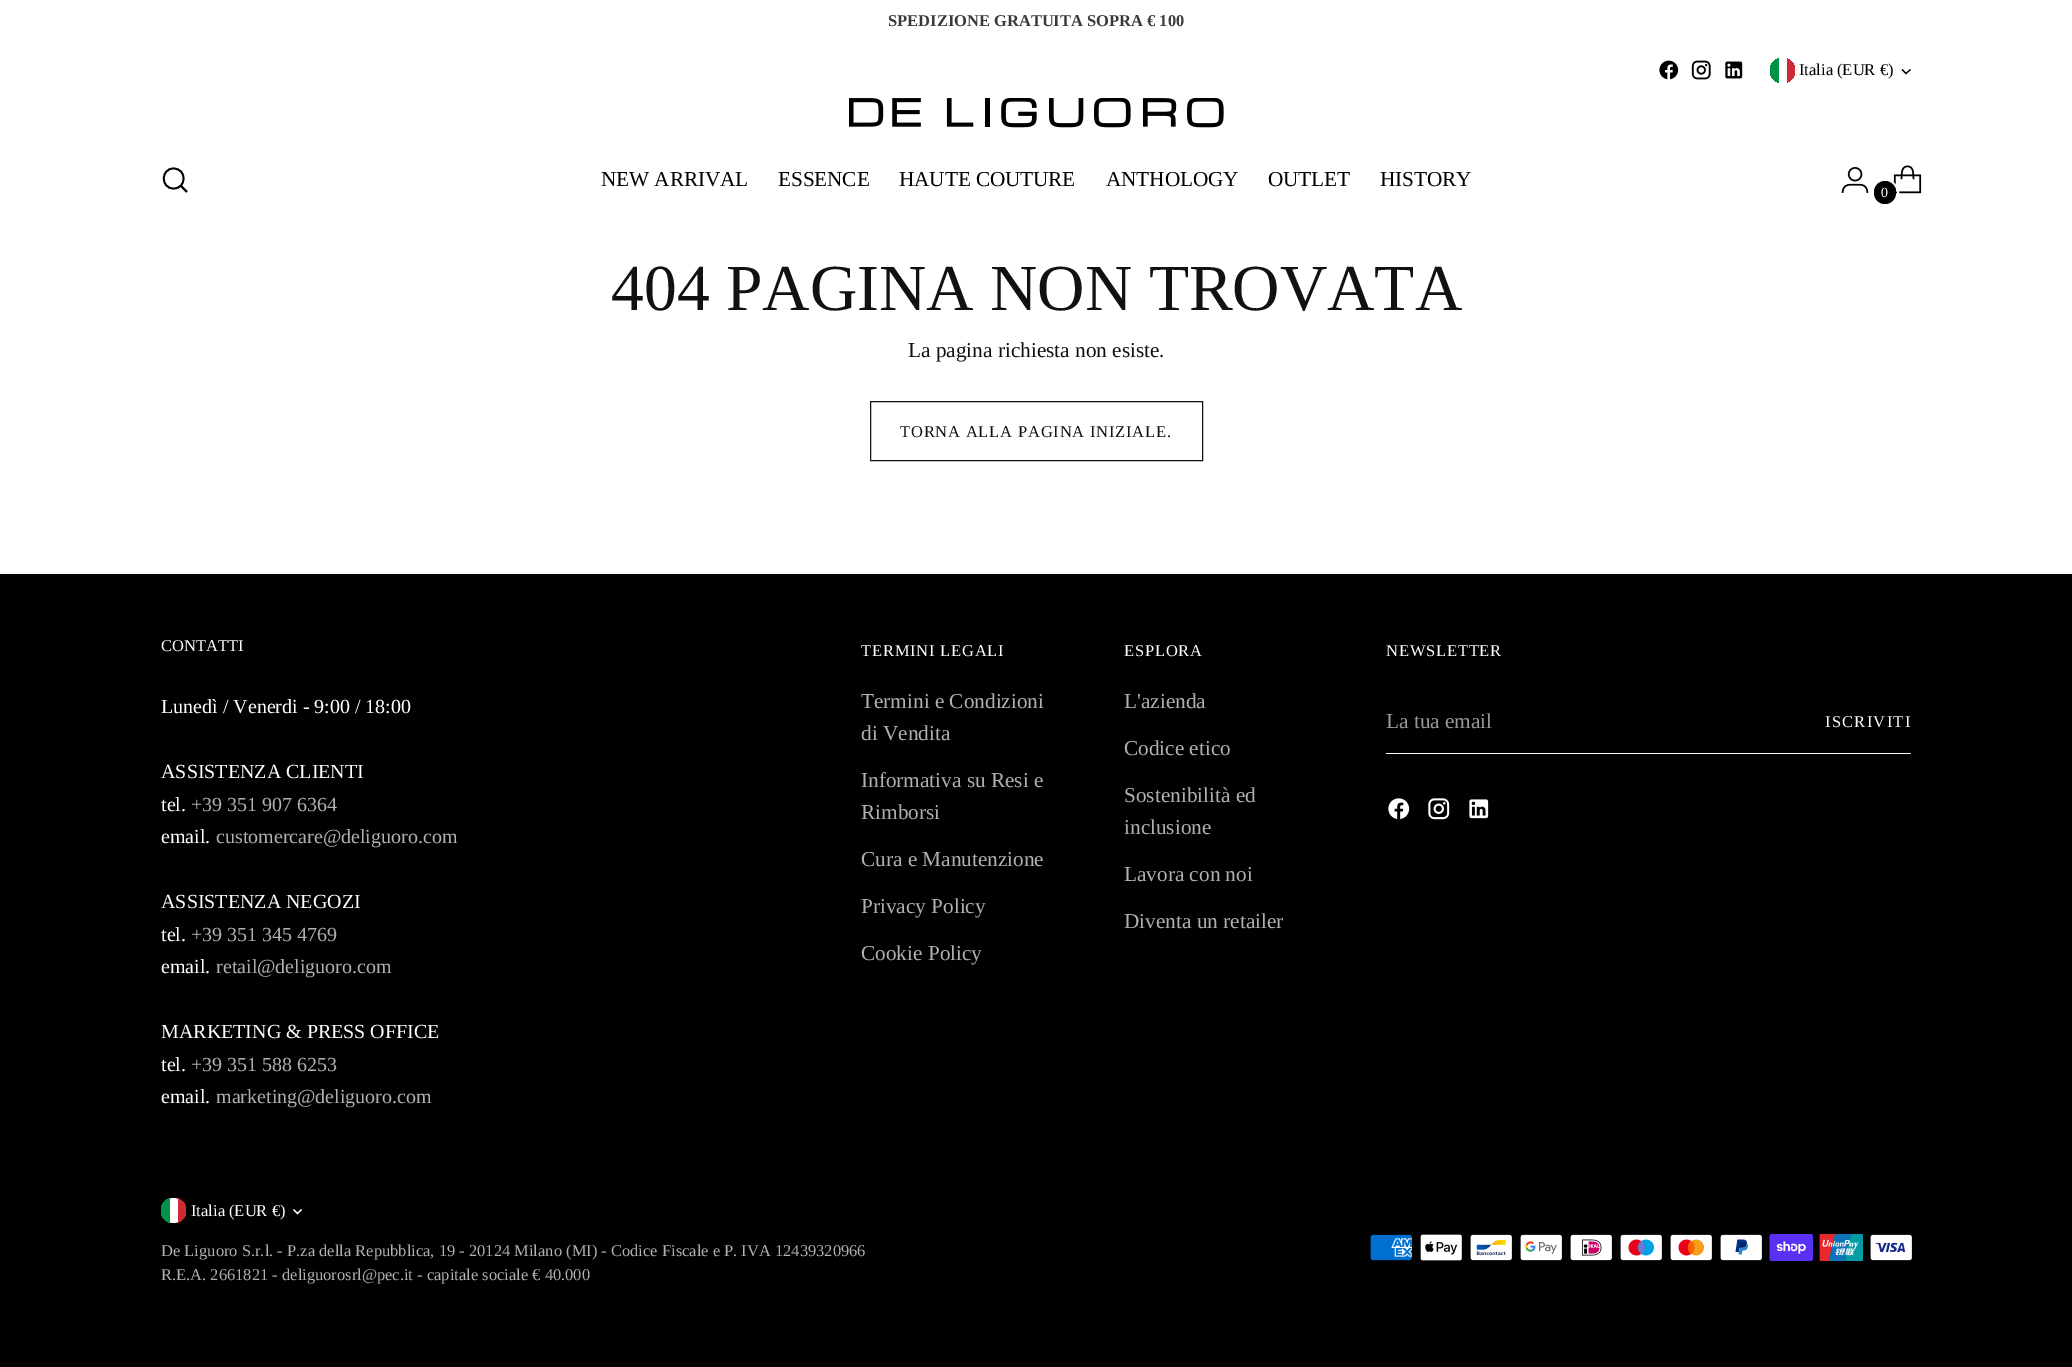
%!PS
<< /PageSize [2072 1367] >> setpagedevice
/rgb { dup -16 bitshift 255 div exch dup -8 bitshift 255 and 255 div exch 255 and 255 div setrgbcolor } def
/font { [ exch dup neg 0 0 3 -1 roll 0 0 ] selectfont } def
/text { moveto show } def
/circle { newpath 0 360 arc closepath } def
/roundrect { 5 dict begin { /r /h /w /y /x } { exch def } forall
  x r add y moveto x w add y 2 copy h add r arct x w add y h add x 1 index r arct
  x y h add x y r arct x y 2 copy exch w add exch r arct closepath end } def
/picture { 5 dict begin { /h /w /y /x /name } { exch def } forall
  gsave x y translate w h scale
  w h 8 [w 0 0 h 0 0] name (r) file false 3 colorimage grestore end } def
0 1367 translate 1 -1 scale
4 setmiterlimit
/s1 { /LiberationSerif-Bold 16.5 font 16#393939 rgb } def
/s2 { /LiberationSerif-Regular 16.5 font 16#000000 rgb } def
/s3 { /LiberationSerif-Regular 14 font 16#FFFFFF rgb } def
/s4 { /LiberationSerif-Regular 65.6 font 16#111111 rgb } def
/s5 { /LiberationSerif-Regular 21.25 font 16#111111 rgb } def
/s6 { /LiberationSerif-Regular 16.5 font 16#FFFFFF rgb } def
/s7 { /LiberationSerif-Regular 20 font 16#FFFFFF rgb } def
/s8 { /LiberationSerif-Regular 20 font 16#B0B0B0 rgb } def
/s9 { /LiberationSerif-Regular 21.25 font 16#B0B0B0 rgb } def
/s10 { /LiberationSerif-Regular 21.25 font 16#999999 rgb } def
/s11 { /LiberationSerif-Regular 16.5 font 16#B0B0B0 rgb } def
16#FFFFFF rgb
0 0 2072 1367 rectfill
s1
(SPEDIZIONE GRATUITA SOPRA € 100) 888 26 text
(pic1.raw) 1659 60 20 20 picture
(pic2.raw) 1691 60 20 20 picture
(pic3.raw) 1725 61 18 18 picture
gsave
1770 58 25 25 12.5 roundrect clip newpath
16#009246 rgb
1770 58 9 25 rectfill
16#CE2B37 rgb
1787 58 8 25 rectfill
grestore
s2
(Italia \(EUR €\)) 1799 75 text
1.1 setlinewidth
1902 69.5 moveto 1906 73.5 lineto 1910.5 69.5 lineto stroke
(pic4.raw) 849 98 375 30 picture
1.8 setlinewidth
1 setlinecap
173.5 188.5 moveto 187 188.5 187 168.5 173.5 168.5 curveto 160.5 168.5 160.5 188.5 173.5 188.5 curveto closepath stroke
0 setlinecap
181 186 moveto 187 192 lineto stroke
/LiberationSerif-Regular 21.25 font
601 186 moveto -0.1 0 (NEW ARRIVAL) ashow
778 186 moveto -0.1 0 (ESSENCE) ashow
899 186 moveto -0.1 0 (HAUTE COUTURE) ashow
1106 186 moveto -0.1 0 (ANTHOLOGY) ashow
1268 186 moveto -0.1 0 (OUTLET) ashow
1380 186 moveto -0.1 0 (HISTORY) ashow
(pic5.raw) 1841 167 28 26 picture
(pic6.raw) 1893 165 29 29 picture
16#FFFFFF rgb
2 setlinewidth
1886 193 12 circle stroke
16#000000 rgb
1874 181 22 23 11 roundrect fill
s3
(0) 1881 197 text
s4
(404 PAGINA NON TROVATA) 611 310 text
s5
(La pagina richiesta non esiste.) 908 357 text
1 setlinewidth
870.5 401.5 332 59 rectstroke
/LiberationSerif-Regular 16.5 font
900 437 moveto 0.8 0 (TORNA ALLA PAGINA INIZIALE.) ashow
16#000000 rgb
0 574 2072 793 rectfill
s6
(CONTATTI) 161 651 text
s7
(Lunedì / Venerdi - 9:00 / 18:00) 161 713 text
(ASSISTENZA CLIENTI) 161 778 text
(tel.) 161 811 text
s8
(+39 351 907 6364) 191 811 text
s7
(email.) 161 843 text
s8
(customercare@deliguoro.com) 216 843 text
s7
(ASSISTENZA NEGOZI) 161 908 text
(tel.) 161 941 text
s8
(+39 351 345 4769) 191 941 text
s7
(email.) 161 973 text
s8
(retail@deliguoro.com) 216 973 text
s7
(MARKETING & PRESS OFFICE) 161 1038 text
(tel.) 161 1071 text
s8
(+39 351 588 6253) 191 1071 text
s7
(email.) 161 1103 text
s8
(marketing@deliguoro.com) 216 1103 text
/LiberationSerif-Regular 16.5 font
16#FFFFFF rgb
861 656 moveto 0.8 0 (TERMINI LEGALI) ashow
s9
(Termini e Condizioni) 861 708 text
(di Vendita) 861 740 text
(Informativa su Resi e) 861 787 text
(Rimborsi) 861 819 text
(Cura e Manutenzione) 861 866 text
(Privacy Policy) 861 913 text
(Cookie Policy) 861 960 text
/LiberationSerif-Regular 16.5 font
16#FFFFFF rgb
1124 656 moveto 0.8 0 (ESPLORA) ashow
s9
(L'azienda) 1124 708 text
(Codice etico) 1124 755 text
(Sostenibilità ed) 1124 802 text
(inclusione) 1124 834 text
(Lavora con noi) 1124 881 text
(Diventa un retailer) 1124 928 text
/LiberationSerif-Regular 16.5 font
16#FFFFFF rgb
1386 656 moveto 0.8 0 (NEWSLETTER) ashow
1386 753 525 1 rectfill
s10
(La tua email) 1386 728 text
/LiberationSerif-Regular 16.5 font
16#FFFFFF rgb
1825 727 moveto 1.25 0 (ISCRIVITI) ashow
(pic7.raw) 1388 798 22 21 picture
(pic8.raw) 1428 798 22 22 picture
(pic9.raw) 1469 799 20 20 picture
173.5 1210.5 12.5 circle fill
gsave
161 1198 25 25 12.5 roundrect clip newpath
16#009246 rgb
161 1198 9 25 rectfill
16#CE2B37 rgb
178 1198 8 25 rectfill
grestore
(Italia \(EUR €\)) 191 1216 text
1.1 setlinewidth
293.5 1209.5 moveto 297.5 1213.5 lineto 301.5 1209.5 lineto stroke
s11
(De Liguoro S.r.l. - P.za della Repubblica, 19 - 20124 Milano \(MI\) - Codice Fiscale e P. IVA 12439320966) 161 1256 text
(R.E.A. 2661821 - deliguorosrl@pec.it - capitale sociale € 40.000) 161 1280 text
(pic10.raw) 1370 1234 42 27 picture
(pic11.raw) 1420 1234 42 27 picture
(pic12.raw) 1470 1234 42 27 picture
(pic13.raw) 1520 1234 42 27 picture
(pic14.raw) 1570 1234 42 27 picture
(pic15.raw) 1620 1234 42 27 picture
(pic16.raw) 1670 1234 42 27 picture
(pic17.raw) 1720 1234 42 27 picture
(pic18.raw) 1769 1234 44 27 picture
(pic19.raw) 1819 1234 44 27 picture
(pic20.raw) 1870 1234 42 27 picture
showpage
